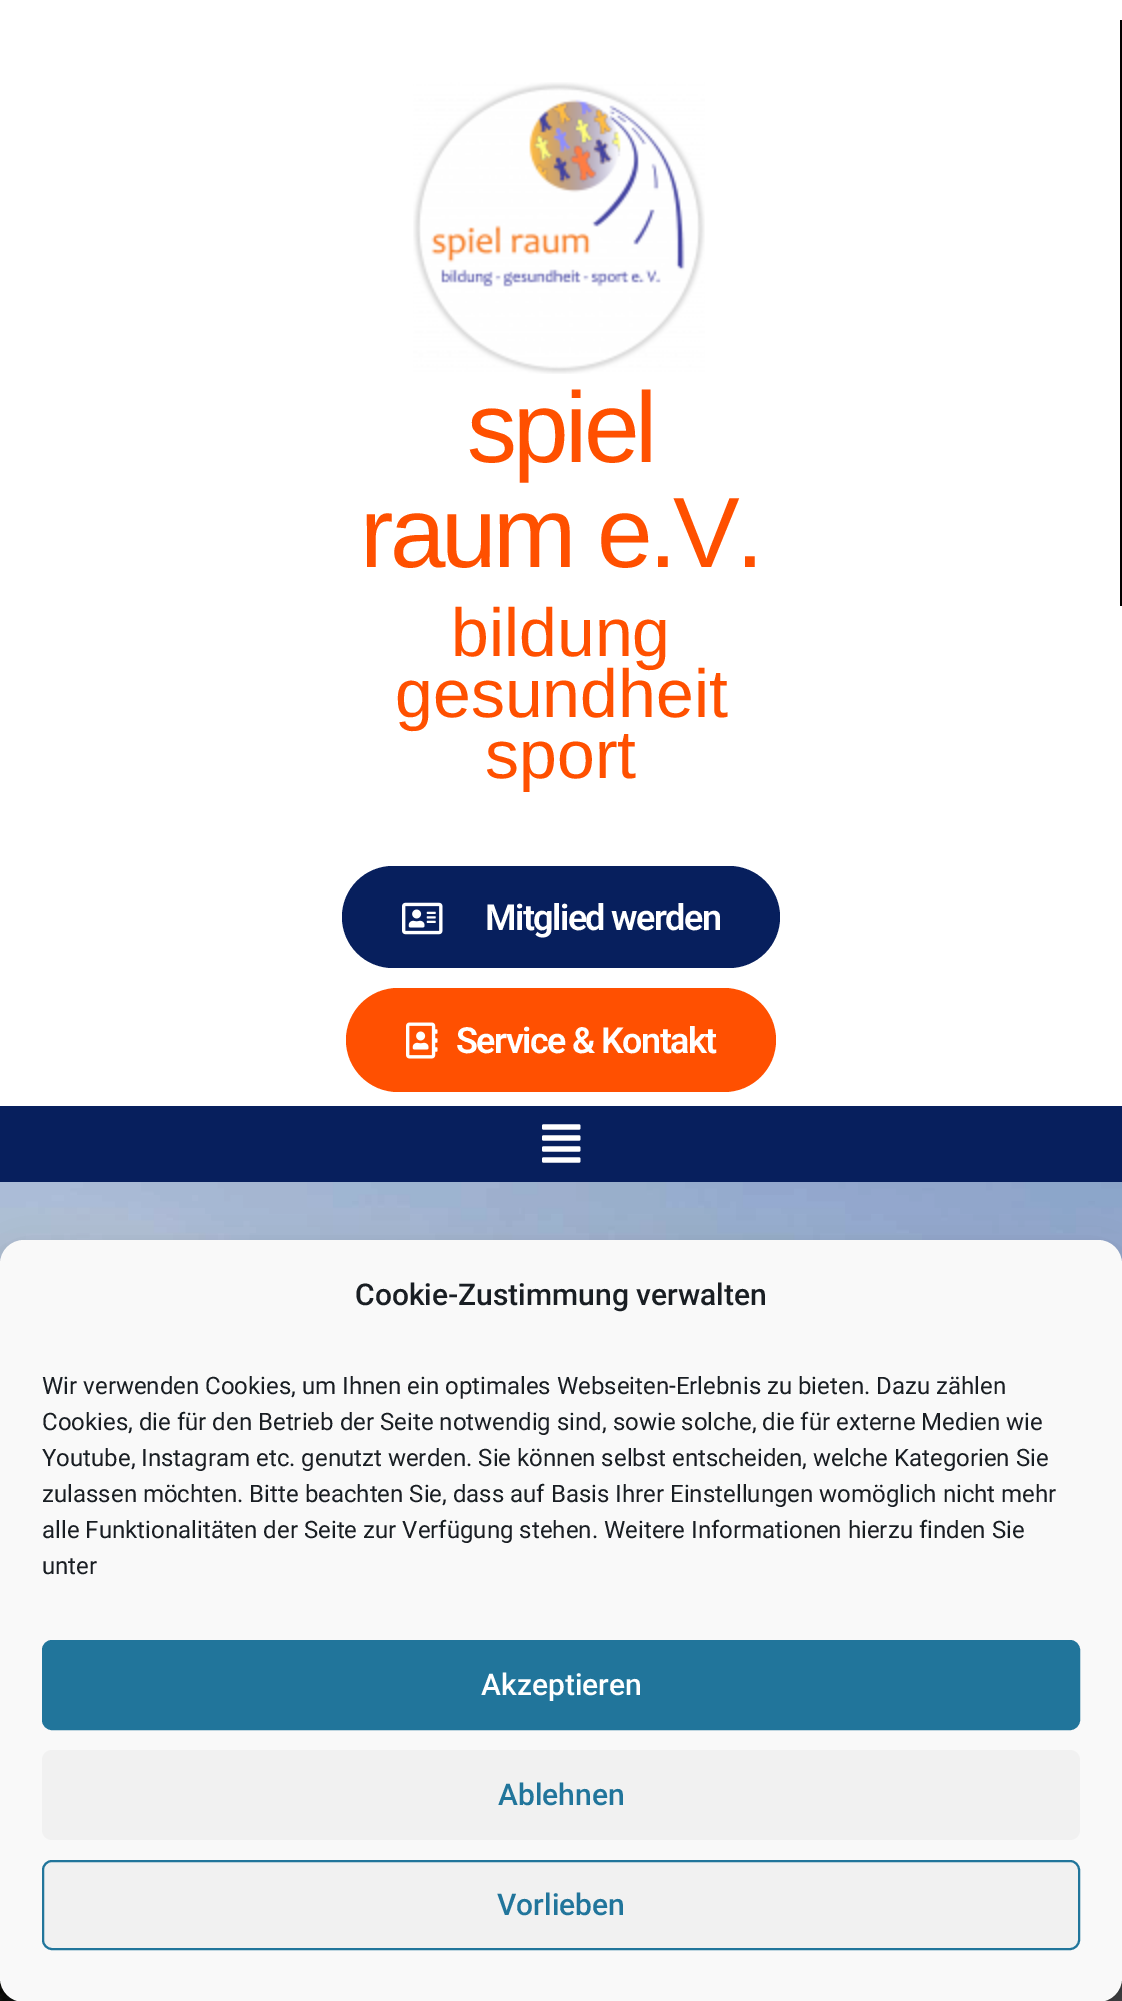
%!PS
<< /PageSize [1122 2001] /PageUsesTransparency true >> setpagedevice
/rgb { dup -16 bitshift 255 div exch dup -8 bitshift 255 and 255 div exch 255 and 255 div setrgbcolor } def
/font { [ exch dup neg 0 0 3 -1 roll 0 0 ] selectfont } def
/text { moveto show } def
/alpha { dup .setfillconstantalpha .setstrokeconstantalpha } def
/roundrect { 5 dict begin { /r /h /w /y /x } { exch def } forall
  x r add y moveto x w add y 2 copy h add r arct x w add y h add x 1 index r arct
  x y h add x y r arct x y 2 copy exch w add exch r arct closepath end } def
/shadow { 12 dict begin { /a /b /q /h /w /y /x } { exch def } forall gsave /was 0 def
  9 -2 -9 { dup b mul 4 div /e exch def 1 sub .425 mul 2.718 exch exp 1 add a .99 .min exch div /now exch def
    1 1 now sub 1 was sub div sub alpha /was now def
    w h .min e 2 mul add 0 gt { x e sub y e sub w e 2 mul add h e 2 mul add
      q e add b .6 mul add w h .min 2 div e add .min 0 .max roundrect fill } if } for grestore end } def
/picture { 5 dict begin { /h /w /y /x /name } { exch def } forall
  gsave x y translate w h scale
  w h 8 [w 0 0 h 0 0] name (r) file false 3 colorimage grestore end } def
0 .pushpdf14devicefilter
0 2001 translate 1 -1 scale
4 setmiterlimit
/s1 { /LiberationSans-Regular 68 font 16#FF5000 rgb } def
/s2 { /Roboto-Medium 30 font 16#191E23 rgb } def
/s3 { /Roboto-Regular 24 font 16#191E23 rgb } def
/s4 { /Roboto-Medium 30 font 16#FFFFFF rgb } def
/s5 { /Roboto-Medium 30 font 16#21759B rgb } def
16#FFFFFF rgb
0 0 1122 2001 rectfill
16#000000 rgb
1120 20 2 586 rectfill
(pic1.raw) 413 82 292 292 picture
/LiberationSans-Regular 100 font
16#FF5000 rgb
467 462 moveto -3.75 0 (spiel) ashow
360 567 moveto -3.75 0 (raum e.V.) ashow
s1
(bildung) 451 656 text
(gesundheit) 395 717 text
(sport) 485 778 text
16#071F5D rgb
342 866 438 102 51 roundrect fill
(pic2.raw) 402 902 41 33 picture
/Roboto-SemiBold 36 font
16#FFFFFF rgb
485 930 moveto -1.6 0 (Mitglied werden) ashow
16#FF5001 rgb
346 988 430 104 52 roundrect fill
(pic3.raw) 406 1022 32 37 picture
16#FFFFFF rgb
456 1053 moveto -1.6 0 (Service & Kontakt) ashow
16#071F5D rgb
0 1106 1122 76 rectfill
(pic4.raw) 542 1124 39 39 picture
(pic5.raw) 0 1182 1122 819 picture
16#000000 rgb
0 1252 1122 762 24 6 0.23 shadow
0 1260 1122 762 24 20 0.19 shadow
16#F9F9F9 rgb
1 1241 1120 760 23 roundrect gsave fill grestore
2 setlinewidth
stroke
s2
(Cookie-Zustimmung verwalten) 355 1305 text
s3
(Wir verwenden Cookies, um Ihnen ein optimales Webseiten-Erlebnis zu bieten. Dazu zählen) 42 1394 text
(Cookies, die für den Betrieb der Seite notwendig sind, sowie solche, die für externe Medien wie) 42 1430 text
(Youtube, Instagram etc. genutzt werden. Sie können selbst entscheiden, welche Kategorien Sie) 42 1466 text
(zulassen möchten. Bitte beachten Sie, dass auf Basis Ihrer Einstellungen womöglich nicht mehr) 42 1502 text
(alle Funktionalitäten der Seite zur Verfügung stehen. Weitere Informationen hierzu finden Sie) 42 1538 text
(unter) 42 1574 text
16#21759B rgb
43 1641 1036 88 9 roundrect gsave fill grestore
stroke
s4
(Akzeptieren) 481 1695 text
16#F1F1F1 rgb
42 1750 1038 90 10 roundrect fill
s5
(Ablehnen) 498 1805 text
16#F1F1F1 rgb
43 1861 1036 88 9 roundrect gsave fill grestore
16#21759B rgb
stroke
(Vorlieben) 497 1915 text
.poppdf14devicefilter showpage
